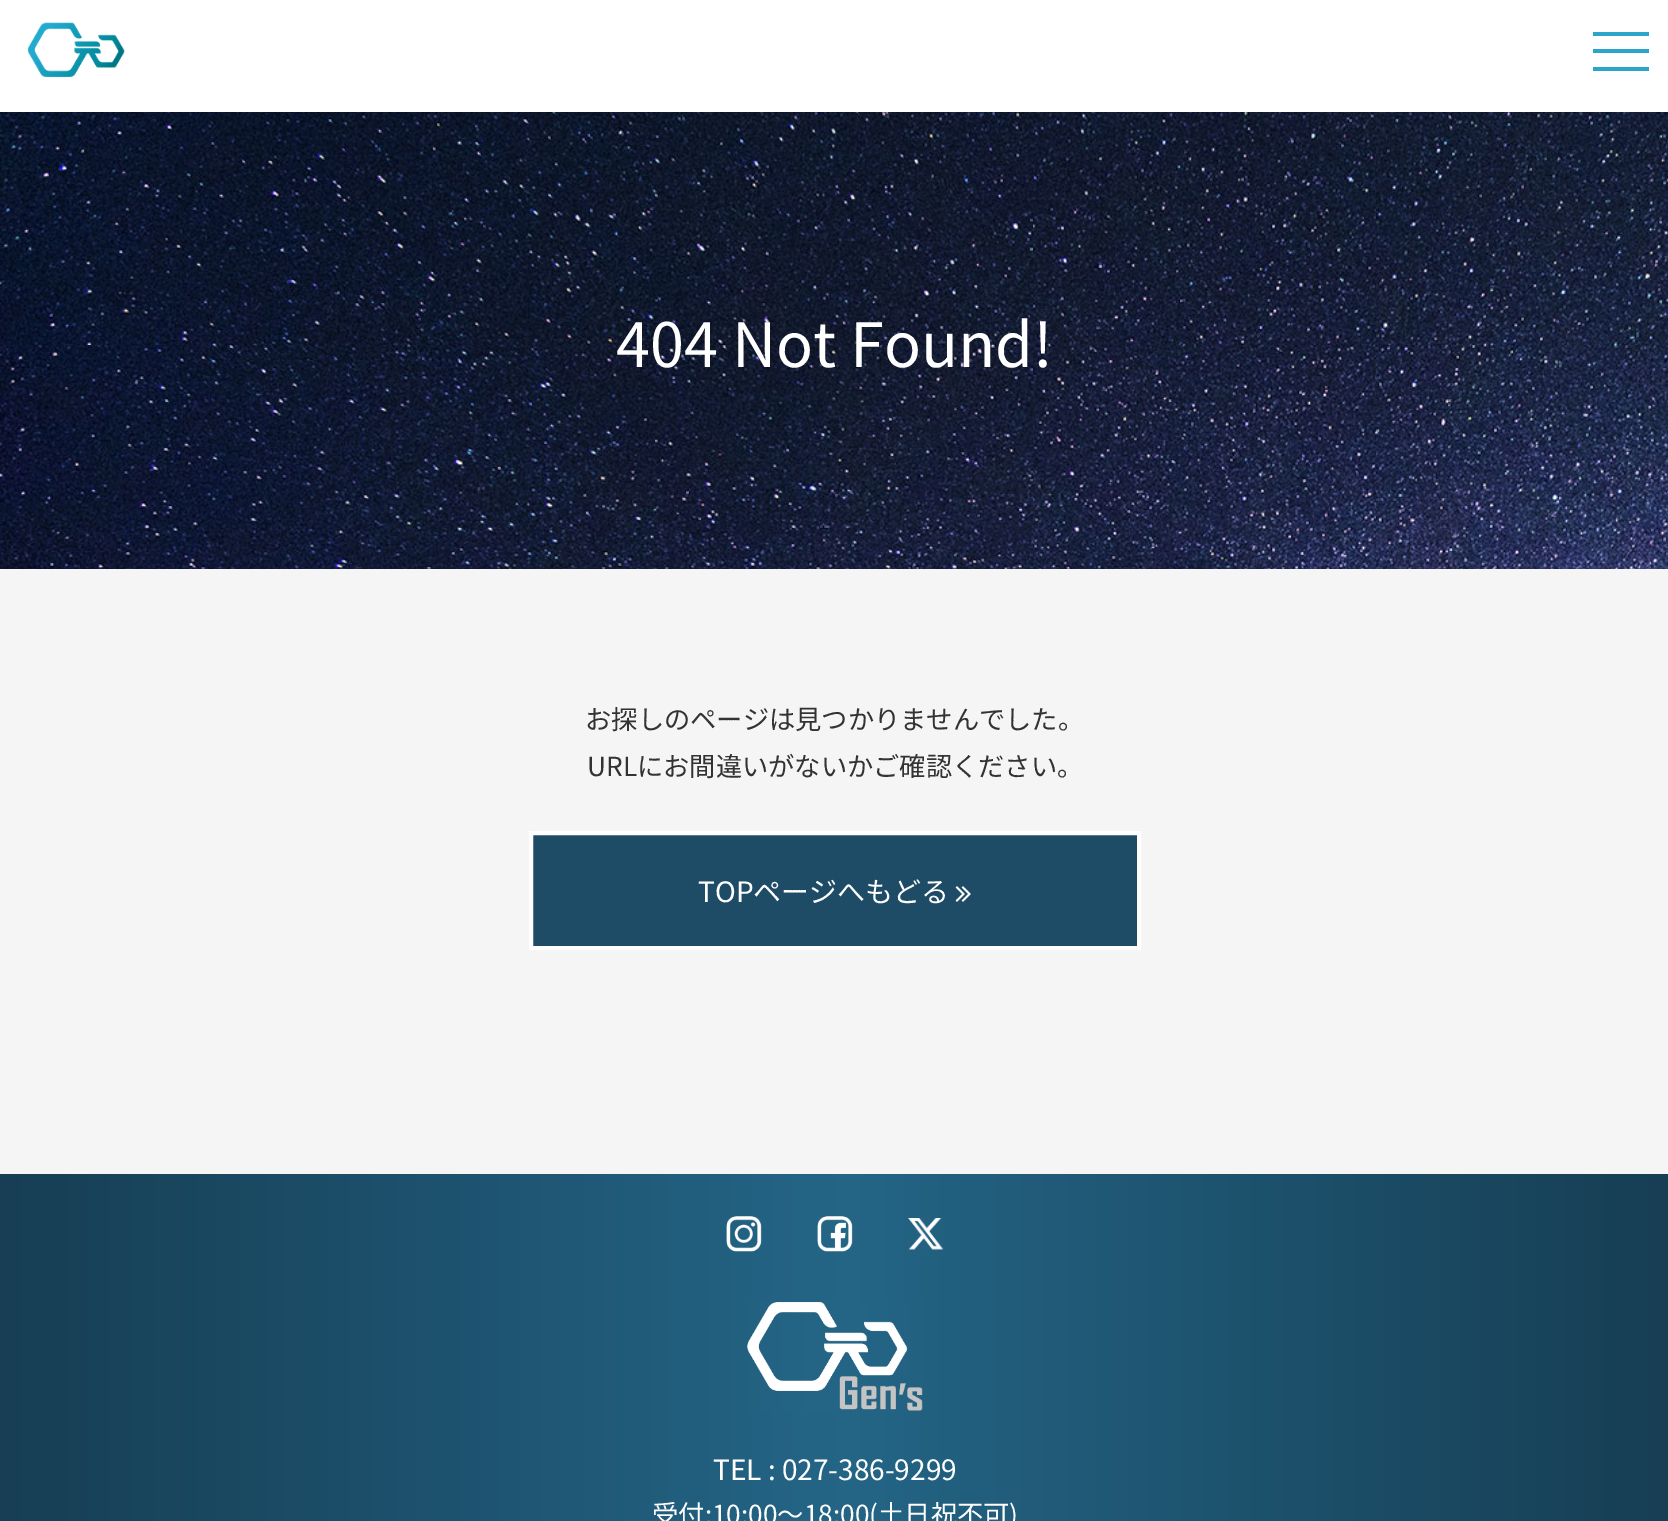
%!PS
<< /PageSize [1668 1521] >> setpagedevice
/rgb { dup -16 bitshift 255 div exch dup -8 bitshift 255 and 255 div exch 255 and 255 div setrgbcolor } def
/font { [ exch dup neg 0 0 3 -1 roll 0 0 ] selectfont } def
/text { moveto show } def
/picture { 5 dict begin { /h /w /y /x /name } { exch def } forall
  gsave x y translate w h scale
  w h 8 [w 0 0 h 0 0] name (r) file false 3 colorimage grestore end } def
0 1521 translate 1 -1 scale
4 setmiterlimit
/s1 { /NotoSansJP-Regular 61.25 font 16#FFFFFF rgb } def
/s2 { /NotoSansJP-Regular 26.25 font 16#333333 rgb } def
/s3 { /NotoSansJP-Regular 28 font 16#FFFFFF rgb } def
/s4 { /NotoSansJP-Regular 26.25 font 16#FFFFFF rgb } def
16#FFFFFF rgb
0 0 1668 1521 rectfill
(pic1.raw) 28 22 97 55 picture
16#2DA4C9 rgb
1593 49 56 4 rectfill
1593 32 56 4 rectfill
1593 67 56 4 rectfill
(pic2.raw) 0 112 1668 457 picture
s1
(404 Not Found!) 616 367 text
16#F5F5F5 rgb
0 569 1668 605 rectfill
s2
(お探しのページは見つかりませんでした。) 585 729 text
(URLにお間違いがないかご確認ください。) 587 776 text
16#1E4C67 rgb
531 833 moveto 1139 833 lineto 1139 948 lineto 531 948 lineto closepath gsave fill grestore
16#FFFFFF rgb
4 setlinewidth
stroke
s3
(TOPページへもどる) 698 902 text
(pic3.raw) 955 886 16 16 picture
gsave 0 1174 moveto 1668 1174 lineto 1668 1521 lineto 0 1521 lineto closepath clip newpath
<< /ShadingType 2 /ColorSpace /DeviceRGB /Coords [0 1422 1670 1422] /Extend [true true] /Function << /FunctionType 3 /Domain [0 1] /Functions [<< /FunctionType 2 /Domain [0 1] /C0 [0.09 0.243 0.329] /C1 [0.141 0.396 0.525] /N 1 >> << /FunctionType 2 /Domain [0 1] /C0 [0.141 0.396 0.525] /C1 [0.09 0.243 0.329] /N 1 >>] /Bounds [0.5] /Encode [0 1 0 1] >> >> shfill grestore
(pic4.raw) 726 1216 36 36 picture
(pic5.raw) 817 1216 36 36 picture
(pic6.raw) 908 1218 36 32 picture
(pic7.raw) 747 1302 176 109 picture
(TEL : 027-386-9299) 713 1480 text
s4
(受付:10:00～18:00\(土日祝不可\)) 652 1524 text
showpage
